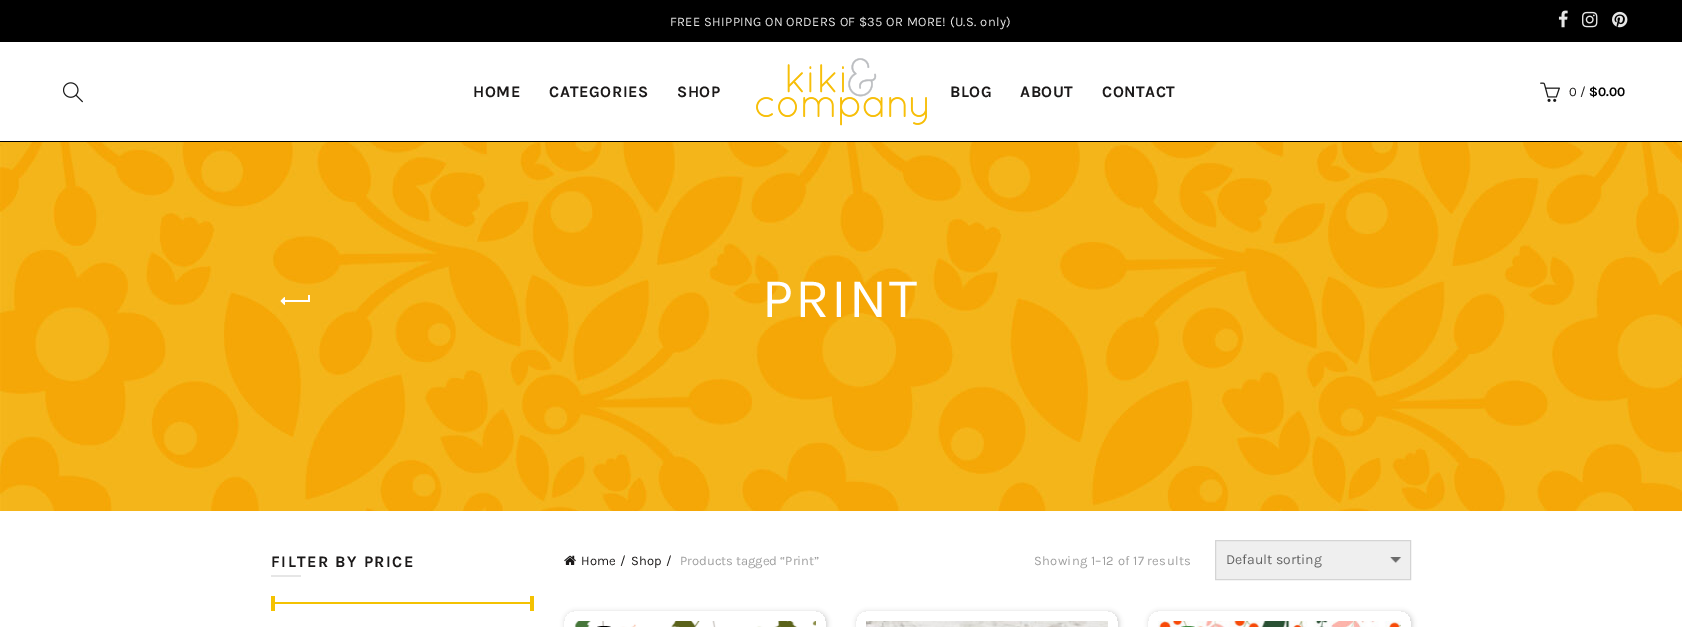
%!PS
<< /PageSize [1682 627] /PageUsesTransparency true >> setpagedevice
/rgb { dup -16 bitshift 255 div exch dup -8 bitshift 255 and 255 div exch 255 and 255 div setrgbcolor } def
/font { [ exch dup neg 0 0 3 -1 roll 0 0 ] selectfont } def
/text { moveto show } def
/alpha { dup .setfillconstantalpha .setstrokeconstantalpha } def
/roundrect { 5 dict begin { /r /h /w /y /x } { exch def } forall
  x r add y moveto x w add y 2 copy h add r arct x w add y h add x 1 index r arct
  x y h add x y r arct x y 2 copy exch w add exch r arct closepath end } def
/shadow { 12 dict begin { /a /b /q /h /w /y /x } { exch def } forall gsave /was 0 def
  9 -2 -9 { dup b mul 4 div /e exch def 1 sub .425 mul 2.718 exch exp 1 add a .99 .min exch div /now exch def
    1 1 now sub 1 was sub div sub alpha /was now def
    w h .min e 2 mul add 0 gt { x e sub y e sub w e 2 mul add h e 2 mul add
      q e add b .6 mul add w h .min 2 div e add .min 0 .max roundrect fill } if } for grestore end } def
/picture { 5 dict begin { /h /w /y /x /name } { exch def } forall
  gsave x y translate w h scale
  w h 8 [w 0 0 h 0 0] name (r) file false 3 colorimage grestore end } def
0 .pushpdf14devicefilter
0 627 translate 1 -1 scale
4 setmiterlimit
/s1 { /Karla-Regular 13 font 16#1B1919 rgb } def
/s2 { /Karla-Bold 13 font 16#000000 rgb } def
/s3 { /Karla-Regular 13 font 16#9E9E9E rgb } def
/s4 { /Karla-Regular 14 font 16#636363 rgb } def
16#FFFFFF rgb
0 0 1682 627 rectfill
16#000000 rgb
0 0 1682 42 rectfill
/Karla-Regular 13 font
16#E6E6E6 rgb
670 26 moveto 0.3 0 (FREE SHIPPING ON ORDERS OF $35 OR MORE! \(U.S. only\)) ashow
(pic1.raw) 1558 10 10 18 picture
(pic2.raw) 1582 11 16 17 picture
(pic3.raw) 1612 11 16 17 picture
16#000000 rgb
0 141 1682 1 rectfill
(pic4.raw) 63 82 20 21 picture
(pic5.raw) 756 58 171 68 picture
/Karla-Bold 16 font
16#1B1919 rgb
473 97 moveto 0.5 0 (HOME) ashow
549 97 moveto 0.5 0 (CATEGORIES) ashow
677 97 moveto 0.5 0 (SHOP) ashow
950 97 moveto 0.5 0 (BLOG) ashow
1020 97 moveto 0.5 0 (ABOUT) ashow
1102 97 moveto 0.5 0 (CONTACT) ashow
(pic6.raw) 1540 82 20 20 picture
s1
(0 /) 1569 96 text
s2
($0.00) 1589 96 text
(pic7.raw) 0 142 1682 369 picture
16#FFFFFF rgb
284 300 25 2 rectfill
(pic8.raw) 280 297 5 8 picture
308 295 2 7 rectfill
/Karla-Regular 56 font
762 317 moveto 2 0 (PRINT) ashow
/Karla-Bold 16 font
16#1B1919 rgb
271 567 moveto 1.5 0 (FILTER BY PRICE) ashow
16#E6E6E6 rgb
271 575 30 2 rectfill
16#F4C201 rgb
271 602 263 2 rectfill
271 596 4 15 rectfill
530 596 4 15 rectfill
(pic9.raw) 564 555 12 10 picture
s1
(Home) 581 565 text
(/) 620 565 text
(Shop) 631 565 text
(/) 666 565 text
s3
(Products tagged “Print”) 680 565 text
1034 565 moveto 0.3 0 (Showing 1–12 of 17 results) ashow
16#EFEFEF rgb
1216 541 194 38 rectfill
(pic10.raw) 1390 557 12 6 picture
16#D4D4D4 rgb
1215.5 540.5 195 39 rectstroke
s4
(Default sorting) 1226 564 text
gsave
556 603 moveto 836 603 lineto 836 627 lineto 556 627 lineto closepath 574 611 moveto 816 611 lineto 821.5 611 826 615.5 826 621 curveto 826 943 lineto 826 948.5 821.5 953 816 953 curveto 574 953 lineto 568.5 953 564 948.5 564 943 curveto 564 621 lineto 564 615.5 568.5 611 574 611 curveto closepath eoclip newpath
16#CCCCCC rgb
565 612 262 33 10 2.5 1 shadow
grestore
(pic11.raw) 574 621 242 6 picture
16#000000 rgb
579 626 50 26 25 roundrect fill
gsave
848 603 moveto 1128 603 lineto 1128 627 lineto 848 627 lineto closepath 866 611 moveto 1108 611 lineto 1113.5 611 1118 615.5 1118 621 curveto 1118 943 lineto 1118 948.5 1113.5 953 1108 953 curveto 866 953 lineto 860.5 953 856 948.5 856 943 curveto 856 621 lineto 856 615.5 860.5 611 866 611 curveto closepath eoclip newpath
16#CCCCCC rgb
857 612 262 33 10 2.5 1 shadow
grestore
(pic12.raw) 866 621 242 6 picture
gsave
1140 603 moveto 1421 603 lineto 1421 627 lineto 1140 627 lineto closepath 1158 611 moveto 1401 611 lineto 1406.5 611 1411 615.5 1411 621 curveto 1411 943 lineto 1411 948.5 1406.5 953 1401 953 curveto 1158 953 lineto 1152.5 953 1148 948.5 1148 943 curveto 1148 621 lineto 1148 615.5 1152.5 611 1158 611 curveto closepath eoclip newpath
16#CCCCCC rgb
1149 612 263 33 10 2.5 1 shadow
grestore
(pic13.raw) 1158 621 243 6 picture
16#438E44 rgb
1163 626 50 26 25 roundrect fill
.poppdf14devicefilter showpage
